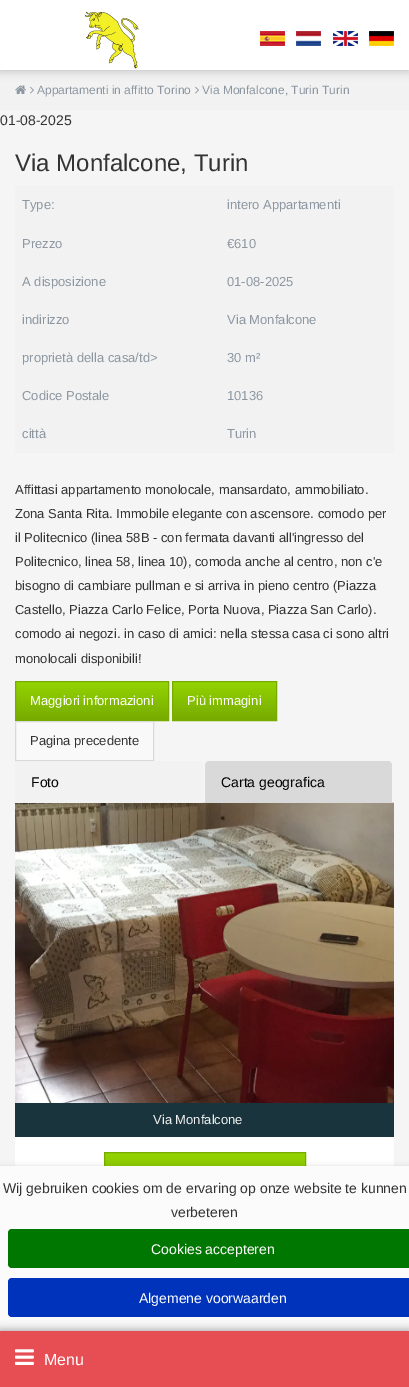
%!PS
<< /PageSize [409 1387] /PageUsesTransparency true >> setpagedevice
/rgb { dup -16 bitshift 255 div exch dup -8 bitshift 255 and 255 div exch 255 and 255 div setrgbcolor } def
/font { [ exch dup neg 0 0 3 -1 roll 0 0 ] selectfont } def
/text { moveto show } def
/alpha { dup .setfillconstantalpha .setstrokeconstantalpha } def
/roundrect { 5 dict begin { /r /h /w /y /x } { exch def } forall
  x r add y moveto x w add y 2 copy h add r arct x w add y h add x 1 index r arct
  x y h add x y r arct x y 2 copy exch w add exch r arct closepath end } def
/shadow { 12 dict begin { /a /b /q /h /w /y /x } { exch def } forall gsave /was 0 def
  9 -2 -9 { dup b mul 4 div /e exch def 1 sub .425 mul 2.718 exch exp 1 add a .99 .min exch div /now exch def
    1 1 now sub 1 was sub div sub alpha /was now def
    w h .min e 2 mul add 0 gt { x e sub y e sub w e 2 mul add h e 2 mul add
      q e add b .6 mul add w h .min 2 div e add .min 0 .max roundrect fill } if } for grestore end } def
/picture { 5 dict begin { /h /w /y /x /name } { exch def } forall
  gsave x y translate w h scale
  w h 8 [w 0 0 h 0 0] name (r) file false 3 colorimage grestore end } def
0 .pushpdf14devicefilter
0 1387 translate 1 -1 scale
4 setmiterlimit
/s1 { /LiberationSans-Regular 12 font 16#8D97A1 rgb } def
/s2 { /LiberationSans-Regular 14 font 16#333333 rgb } def
/s3 { /LiberationSans-Regular 24 font 16#333333 rgb } def
/s4 { /LiberationSans-Regular 13 font 16#8D97A1 rgb } def
/s5 { /LiberationSans-Regular 13 font 16#333333 rgb } def
/s6 { /LiberationSans-Regular 13 font 16#FFFFFF rgb } def
/s7 { /LiberationSans-Regular 14 font 16#000000 rgb } def
/s8 { /LiberationSans-Regular 13 font 16#EFEFEF rgb } def
/s9 { /LiberationSans-Regular 14 font 16#FFFFFF rgb } def
/s10 { /LiberationSans-Regular 16 font 16#FFFFFF rgb } def
16#F5F5F5 rgb
0 0 409 1387 rectfill
16#F2F2F2 rgb
0 70 409 40 rectfill
(pic6.raw) 15 85 11 9 picture
16#000000 rgb
0 0 409 70 0 5 0.25 shadow
16#FFFFFF rgb
0 0 409 70 rectfill
(pic1.raw) 84 11 55 58 picture
(pic2.raw) 260 31 25 15 picture
(pic3.raw) 296 31 25 15 picture
(pic4.raw) 333 31 25 15 picture
(pic5.raw) 369 31 25 15 picture
(pic7.raw) 30 86 4 8 picture
s1
(Appartamenti in affitto Torino) 37 94 text
(pic7.raw) 195 86 4 8 picture
(Via Monfalcone, Turin Turin) 202 94 text
s2
(01-08-2025) 0 125 text
s3
(Via Monfalcone, Turin) 15 171 text
16#F2F2F2 rgb
15 186 379 267 rectfill
s4
(Type:) 22 209 text
(intero Appartamenti) 227 209 text
(Prezzo) 22 248 text
(€610) 227 248 text
(A disposizione) 22 286 text
(01-08-2025) 227 286 text
(indirizzo) 22 324 text
(Via Monfalcone) 227 324 text
(proprietà della casa/td>) 22 362 text
(30 m²) 227 362 text
(Codice Postale) 22 400 text
(10136) 227 400 text
(città) 22 438 text
(Turin) 227 438 text
s5
(Affittasi appartamento monolocale, mansardato, ammobiliato.) 15 494 text
(Zona Santa Rita. Immobile elegante con ascensore. comodo per) 15 518 text
(il Politecnico \(linea 58B - con fermata davanti all'ingresso del) 15 542 text
(Politecnico, linea 58, linea 10\), comoda anche al centro, non c'e) 15 566 text
(bisogno di cambiare pullman e si arriva in pieno centro \(Piazza) 15 590 text
(Castello, Piazza Carlo Felice, Porta Nuova, Piazza San Carlo\).) 15 614 text
(comodo ai negozi. in caso di amici: nella stessa casa ci sono altri) 15 638 text
(monolocali disponibili!) 15 663 text
gsave 16 682 moveto 168 682 lineto 168 720 lineto 16 720 lineto closepath clip newpath
<< /ShadingType 2 /ColorSpace /DeviceRGB /Coords [92 682 92 720] /Extend [true true] /Function << /FunctionType 2 /Domain [0 1] /C0 [0.576 0.831 0] /C1 [0.467 0.671 0] /N 1 >> >> shfill grestore
16#77AB00 rgb
15.5 681.5 153 39 rectstroke
s6
(Maggiori informazioni) 30 705 text
gsave 173 682 moveto 276 682 lineto 276 720 lineto 173 720 lineto closepath clip newpath
<< /ShadingType 2 /ColorSpace /DeviceRGB /Coords [225 682 225 720] /Extend [true true] /Function << /FunctionType 2 /Domain [0 1] /C0 [0.576 0.831 0] /C1 [0.467 0.671 0] /N 1 >> >> shfill grestore
16#77AB00 rgb
172.5 681.5 104 39 rectstroke
s6
(Più immagini) 187 705 text
16#F9F9F9 rgb
15.5 721.5 moveto 153.5 721.5 lineto 153.5 760.5 lineto 15.5 760.5 lineto closepath gsave fill grestore
16#D9D9D9 rgb
stroke
s5
(Pagina precedente) 30 745 text
16#DDDDDD rgb
203 802 191 1 rectfill
16#F2F2F2 rgb
19 761 moveto 199 761 lineto 201 761 203 763 203 765 curveto 203 803 lineto 15 803 lineto 15 765 lineto 15 763 17 761 19 761 curveto closepath fill
s7
(Foto) 31 787 text
16#D9D9D9 rgb
209 761 moveto 388 761 lineto 390 761 392 763 392 765 curveto 392 803 lineto 205 803 lineto 205 765 lineto 205 763 207 761 209 761 curveto closepath fill
s7
(Carta geografica) 221 787 text
(pic8.raw) 15 803 379 300 picture
16#19343D rgb
15 1103 379 34 rectfill
s8
(Via Monfalcone) 153 1124 text
16#FFFFFF rgb
15 1137 379 29 rectfill
gsave 105 1153 moveto 305 1153 lineto 305 1166 lineto 105 1166 lineto closepath clip newpath
<< /ShadingType 2 /ColorSpace /DeviceRGB /Coords [205 1153 205 1203] /Extend [true true] /Function << /FunctionType 2 /Domain [0 1] /C0 [0.576 0.831 0] /C1 [0.467 0.671 0] /N 1 >> >> shfill grestore
16#77AB00 rgb
104.5 1152.5 201 51 rectstroke
16#363636 rgb
0 1166 409 166 0 2.5 0.15 shadow
16#FBFBFB rgb
0 1166 409 165 rectfill
s2
(Wij gebruiken cookies om de ervaring op onze website te kunnen) 3 1193 text
(verbeteren) 171 1217 text
16#007700 rgb
8 1229 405 39 4 roundrect fill
s9
(Cookies accepteren) 151 1254 text
16#0033BB rgb
8 1278 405 39 4 roundrect fill
s9
(Algemene voorwaarden) 139 1303 text
16#000000 rgb
0 1332 409 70 0 5 0.25 shadow
0 1331 409 56 0 5 0.25 shadow
16#E64E54 rgb
0 1331 409 56 rectfill
(pic9.raw) 15 1349 19 16 picture
s10
(Menu) 44 1365 text
.poppdf14devicefilter showpage
